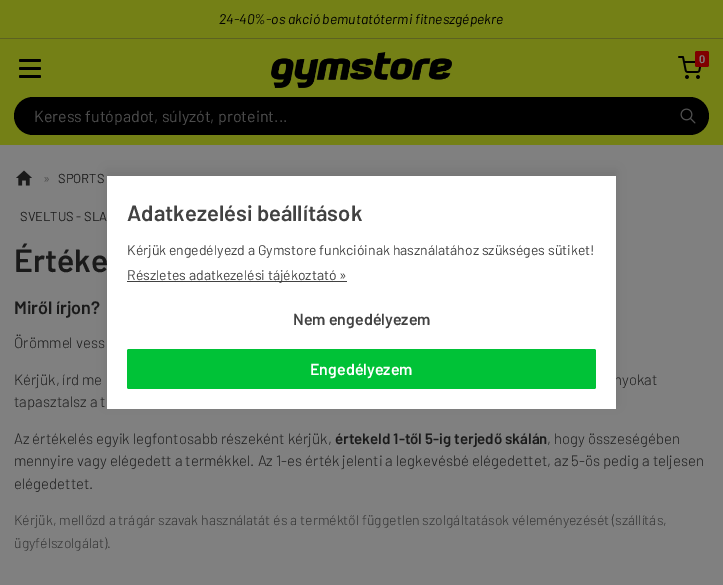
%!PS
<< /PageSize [723 585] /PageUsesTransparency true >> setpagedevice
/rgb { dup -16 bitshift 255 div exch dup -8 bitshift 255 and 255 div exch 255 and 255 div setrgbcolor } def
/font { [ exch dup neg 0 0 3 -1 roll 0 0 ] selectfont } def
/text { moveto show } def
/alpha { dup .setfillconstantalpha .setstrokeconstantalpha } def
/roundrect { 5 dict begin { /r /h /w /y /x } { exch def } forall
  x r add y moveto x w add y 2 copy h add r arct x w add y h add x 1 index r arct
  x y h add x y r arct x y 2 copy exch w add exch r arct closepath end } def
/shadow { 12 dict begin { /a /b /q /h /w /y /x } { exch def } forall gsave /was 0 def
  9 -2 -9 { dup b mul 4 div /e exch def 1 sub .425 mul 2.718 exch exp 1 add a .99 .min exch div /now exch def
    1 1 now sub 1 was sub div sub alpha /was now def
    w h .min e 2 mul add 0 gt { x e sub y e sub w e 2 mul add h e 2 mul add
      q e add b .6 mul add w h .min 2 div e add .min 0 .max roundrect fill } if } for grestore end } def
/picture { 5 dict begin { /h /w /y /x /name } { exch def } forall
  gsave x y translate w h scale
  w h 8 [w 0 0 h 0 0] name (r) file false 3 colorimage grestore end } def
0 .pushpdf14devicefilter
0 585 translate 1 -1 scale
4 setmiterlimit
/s1 { /Barlow-Italic 14 font 16#000000 rgb } def
/s2 { /Barlow-SemiBold 11 font 16#808080 rgb } def
/s3 { /Barlow-Regular 16 font 16#4D4D4D rgb } def
/s4 { /Barlow-Regular 13 font 16#4D4D4D rgb } def
/s5 { /Barlow-Regular 13 font 16#1A1A1A rgb } def
/s6 { /Barlow-SemiBold 32 font 16#1A1A1A rgb } def
/s7 { /Barlow-SemiBold 18 font 16#1A1A1A rgb } def
/s8 { /Barlow-Light 15 font 16#1A1A1A rgb } def
/s9 { /Barlow-SemiBold 15 font 16#1A1A1A rgb } def
/s10 { /Barlow-Light 14 font 16#333333 rgb } def
/s11 { /Barlow-SemiBold 22 font 16#424242 rgb } def
/s12 { /Barlow-Regular 14 font 16#424242 rgb } def
/s13 { /Barlow-SemiBold 16 font 16#424242 rgb } def
/s14 { /Barlow-SemiBold 16 font 16#FFFFFF rgb } def
16#808080 rgb
0 0 723 585 rectfill
16#748016 rgb
0 0 723 38 rectfill
16#5C6221 rgb
0 38 723 1 rectfill
s1
(24-40%-os akció bemutatótermi fitneszgépekre) 219 24 text
16#748016 rgb
0 39 723 106 rectfill
16#000000 rgb
19 59 22 3 1.5 roundrect fill
19 67 22 3 1.5 roundrect fill
19 75 22 3 1.5 roundrect fill
(pic1.raw) 271 52 181 36 picture
(pic2.raw) 678 56 23 23 picture
16#800000 rgb
695 51 14 16 2 roundrect fill
s2
(0) 699 63 text
16#000000 rgb
14 97 695 38 19 roundrect fill
gsave
34 106 635 19 rectclip
s3
(Keress futópadot, súlyzót, proteint...) 34 122 text
grestore
(pic3.raw) 680 108 16 16 picture
(pic4.raw) 16 170 16 16 picture
s4
(») 43 183 text
s5
(SPORTS) 58 183 text
(SVELTUS - SLA) 20 221 text
s6
(Értéke) 14 272 text
s7
(Miről írjon?) 14 314 text
s8
(Örömmel vess) 14 348 text
(Kérjük, írd me) 14 385 text
(nyokat) 614 385 text
(tapasztalsz a t) 14 407 text
(Az értékelés egyik legfontosabb részeként kérjük,) 14 444 text
s9
(értekeld 1-től 5-ig terjedő skálán) 335 444 text
s8
(, hogy összeségében) 547 444 text
(mennyire vagy elégedett a termékkel. Az 1-es érték jelenti a legkevésbé elégedettet, az 5-ös pedig a teljesen) 14 466 text
(elégedettet.) 14 489 text
s10
(Kérjük, mellőzd a trágár szavak használatát és a terméktől független szolgáltatások véleményezését \(szállítás,) 14 525 text
(ügyfélszolgálat\).) 14 548 text
16#000000 rgb
107 171 509 233 0 5 0.1 shadow
16#FFFFFF rgb
107 176 509 233 rectfill
s11
(Adatkezelési beállítások) 127 221 text
s12
(Kérjük engedélyezd a Gymstore funkcióinak használatához szükséges sütiket!) 127 255 text
127 281 220 1 rectfill
(Részletes adatkezelési tájékoztató ») 127 280 text
s13
(Nem engedélyezem) 293 325 text
16#00C237 rgb
127 349 469 40 2 roundrect fill
s14
(Engedélyezem) 310 375 text
.poppdf14devicefilter showpage
